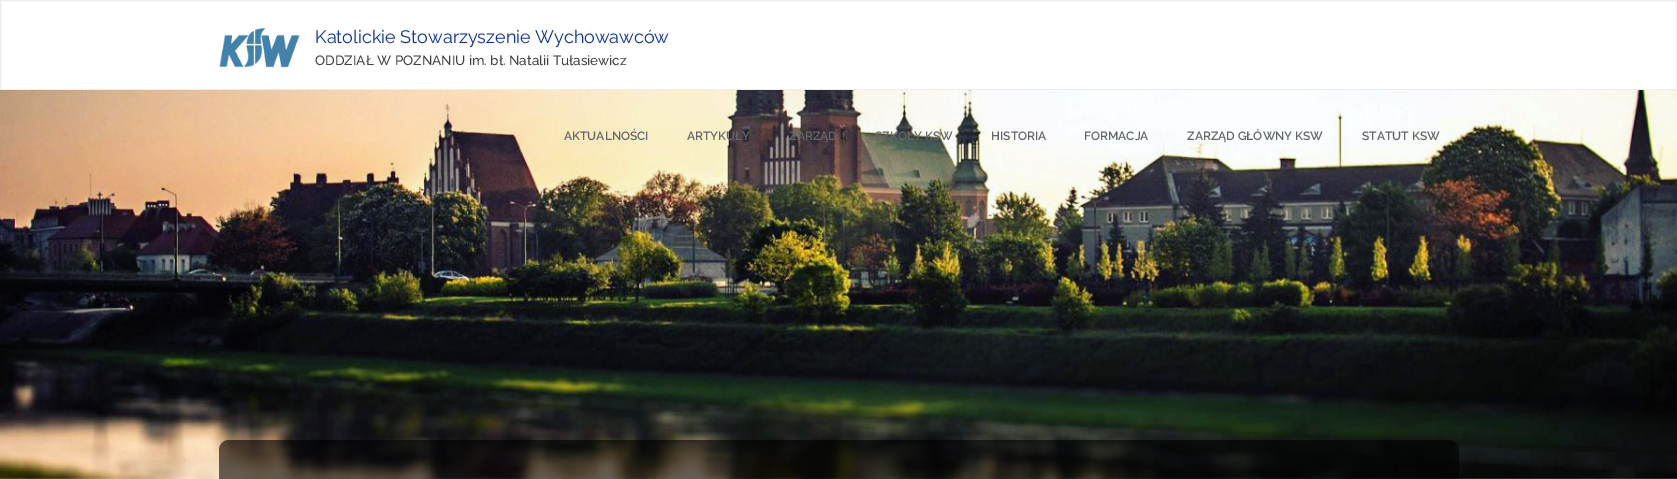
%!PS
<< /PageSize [1677 479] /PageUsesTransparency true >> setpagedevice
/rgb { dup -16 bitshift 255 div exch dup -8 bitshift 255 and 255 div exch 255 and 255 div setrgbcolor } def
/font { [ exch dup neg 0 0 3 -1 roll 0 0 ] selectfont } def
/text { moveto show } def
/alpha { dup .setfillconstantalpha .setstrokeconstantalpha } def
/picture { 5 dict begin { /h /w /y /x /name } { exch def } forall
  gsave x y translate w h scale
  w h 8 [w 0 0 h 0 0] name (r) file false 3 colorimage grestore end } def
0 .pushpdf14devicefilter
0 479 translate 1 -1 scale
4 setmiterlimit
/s1 { /Raleway-Regular 18 font 16#083293 rgb } def
/s2 { /Raleway-Medium 13.5 font 16#404040 rgb } def
/s3 { /Raleway-SemiBold 12 font 16#63666B rgb } def
16#FFFFFF rgb
0 0 1677 479 rectfill
16#EDEDED rgb
0.5 0.5 1676 89 rectstroke
(pic1.raw) 219 27 81 41 picture
s1
(Katolickie Stowarzyszenie Wychowawców) 315 43 text
s2
(ODDZIAŁ W POZNANIU im. bł. Natalii Tułasiewicz) 315 65 text
(pic2.raw) 0 90 1677 389 picture
s3
(AKTUALNOŚCI) 564 140 text
(ARTYKUŁY) 687 140 text
(ZARZĄD) 789 140 text
(SZKOŁY KSW) 875 140 text
(HISTORIA) 991 140 text
(FORMACJA) 1084 140 text
(ZARZĄD GŁÓWNY KSW) 1187 140 text
(STATUT KSW) 1362 140 text
0.6 alpha
16#000000 rgb
229 440 moveto 1449 440 lineto 1454.5 440 1459 444.5 1459 450 curveto 1459 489 lineto 219 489 lineto 219 450 lineto 219 444.5 223.5 440 229 440 curveto closepath fill
.poppdf14devicefilter showpage
